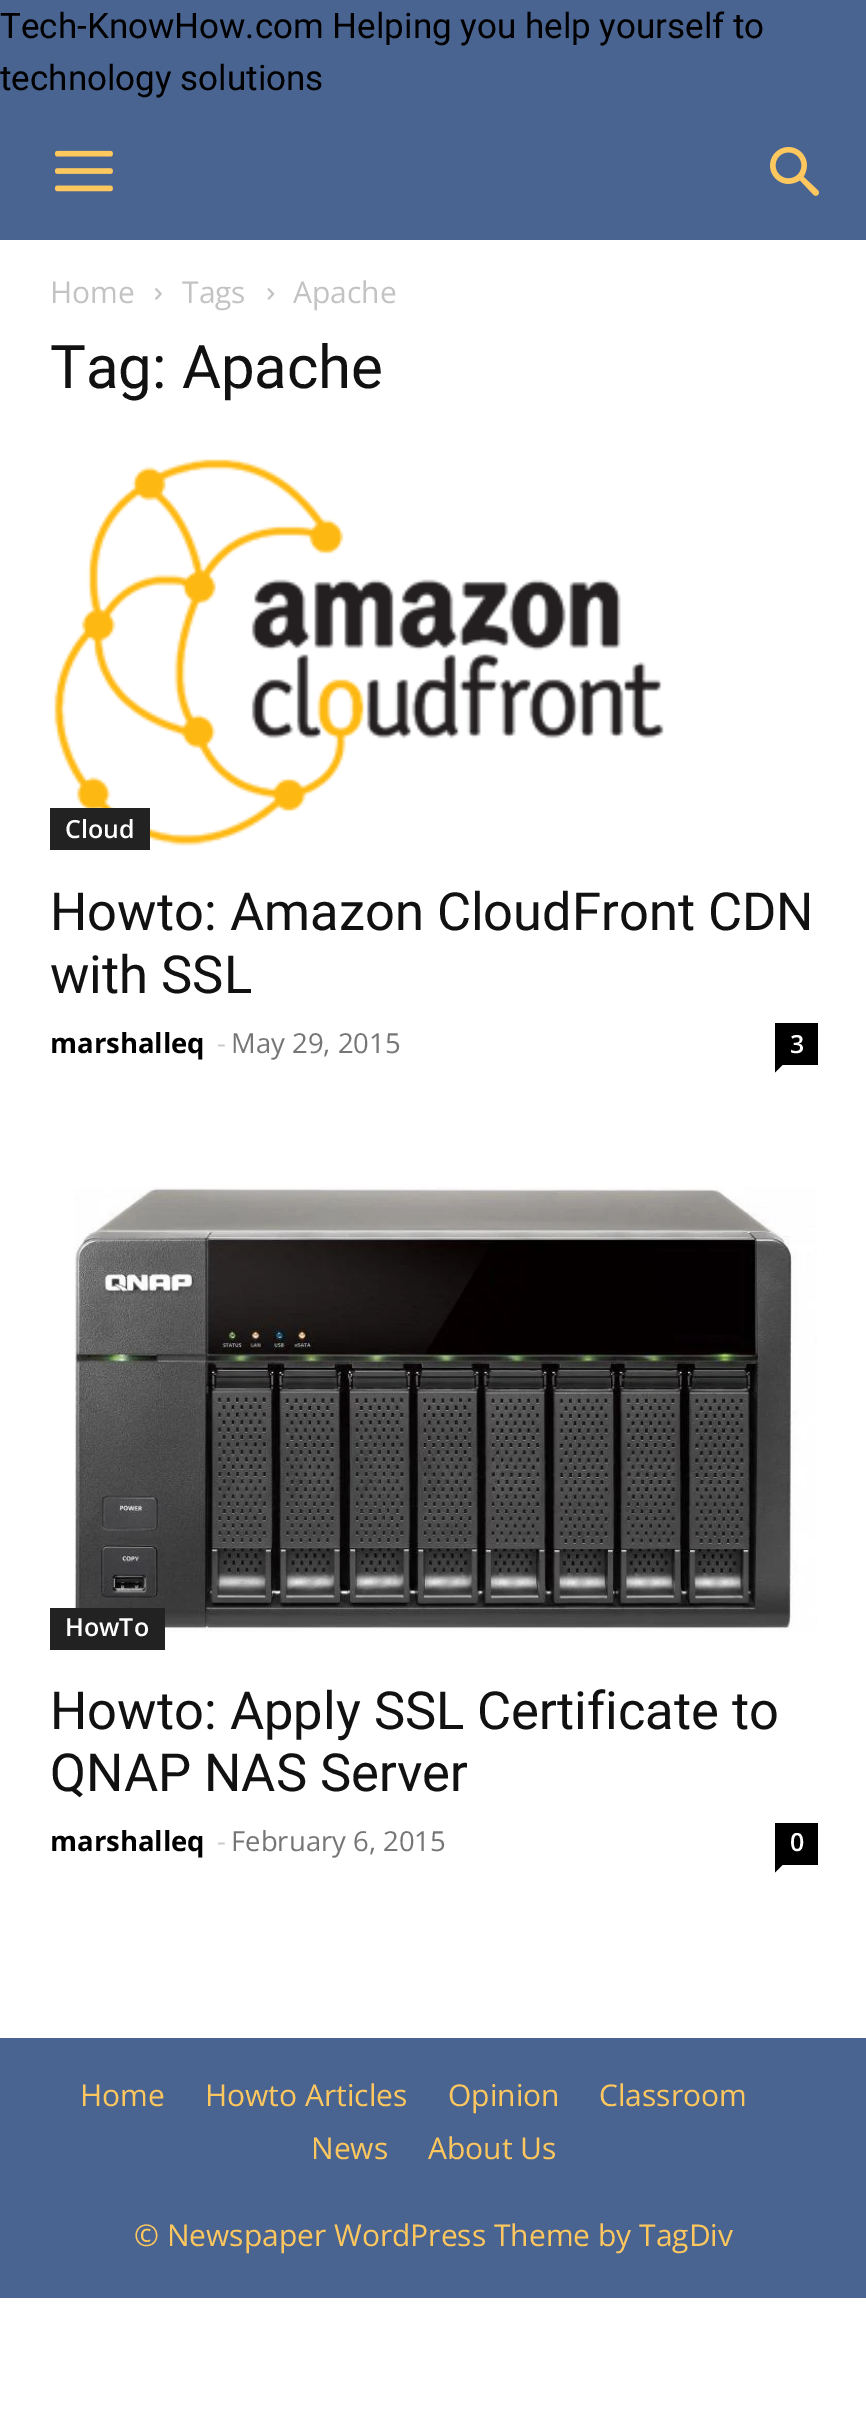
%!PS
<< /PageSize [866 2415] >> setpagedevice
/rgb { dup -16 bitshift 255 div exch dup -8 bitshift 255 and 255 div exch 255 and 255 div setrgbcolor } def
/font { [ exch dup neg 0 0 3 -1 roll 0 0 ] selectfont } def
/text { moveto show } def
/picture { 5 dict begin { /h /w /y /x /name } { exch def } forall
  gsave x y translate w h scale
  w h 8 [w 0 0 h 0 0] name (r) file false 3 colorimage grestore end } def
0 2415 translate 1 -1 scale
4 setmiterlimit
/s1 { /Roboto-Regular 35 font 16#000000 rgb } def
/s2 { /OpenSans-Regular 30 font 16#C3C3C3 rgb } def
/s3 { /Roboto-Regular 60 font 16#111111 rgb } def
/s4 { /OpenSans-SemiBold 25 font 16#FFFFFF rgb } def
/s5 { /Roboto-Regular 52.5 font 16#111111 rgb } def
/s6 { /OpenSans-Bold 27.5 font 16#000000 rgb } def
/s7 { /OpenSans-Regular 27.5 font 16#CCCCCC rgb } def
/s8 { /OpenSans-Regular 27.5 font 16#767676 rgb } def
/s9 { /OpenSans-Regular 30 font 16#FEC85F rgb } def
16#FFFFFF rgb
0 0 866 2415 rectfill
16#4A6491 rgb
0 0 866 240 rectfill
s1
(Tech-KnowHow.com Helping you help yourself to) 0 38 text
(technology solutions) 0 90 text
(pic1.raw) 55 150 58 42 picture
(pic2.raw) 770 147 49 49 picture
s2
(Home) 50 303 text
(pic3.raw) 155 288 7 12 picture
(Tags) 182 303 text
(pic4.raw) 267 288 8 12 picture
(Apache) 293 303 text
s3
(Tag: Apache) 50 388 text
(pic5.raw) 54 459 610 387 picture
16#222222 rgb
50 808 100 42 rectfill
s4
(Cloud) 65 838 text
s5
(Howto: Amazon CloudFront CDN) 50 930 text
(with SSL) 50 993 text
s6
(marshalleq) 50 1053 text
s7
(-) 217 1053 text
s8
(May 29, 2015) 231 1053 text
16#000000 rgb
775 1023 43 42 rectfill
s4
(3) 790 1053 text
16#000000 rgb
775 1065 moveto 782.5 1065 lineto 775 1072.5 lineto closepath fill
(pic6.raw) 74 1187 743 445 picture
16#222222 rgb
50 1608 115 42 rectfill
s4
(HowTo) 65 1636 text
s5
(Howto: Apply SSL Certificate to) 50 1729 text
(QNAP NAS Server) 50 1791 text
s6
(marshalleq) 50 1851 text
s7
(-) 217 1851 text
s8
(February 6, 2015) 231 1851 text
16#000000 rgb
775 1823 43 42 rectfill
s4
(0) 790 1851 text
16#000000 rgb
775 1865 moveto 782.5 1865 lineto 775 1872.5 lineto closepath fill
16#4A6491 rgb
0 2038 866 260 rectfill
s9
(Home) 80 2106 text
(Howto Articles) 205 2106 text
(Opinion) 448 2106 text
(Classroom) 599 2106 text
(News) 311 2159 text
(About Us) 428 2159 text
(© Newspaper WordPress Theme by TagDiv) 134 2246 text
showpage
